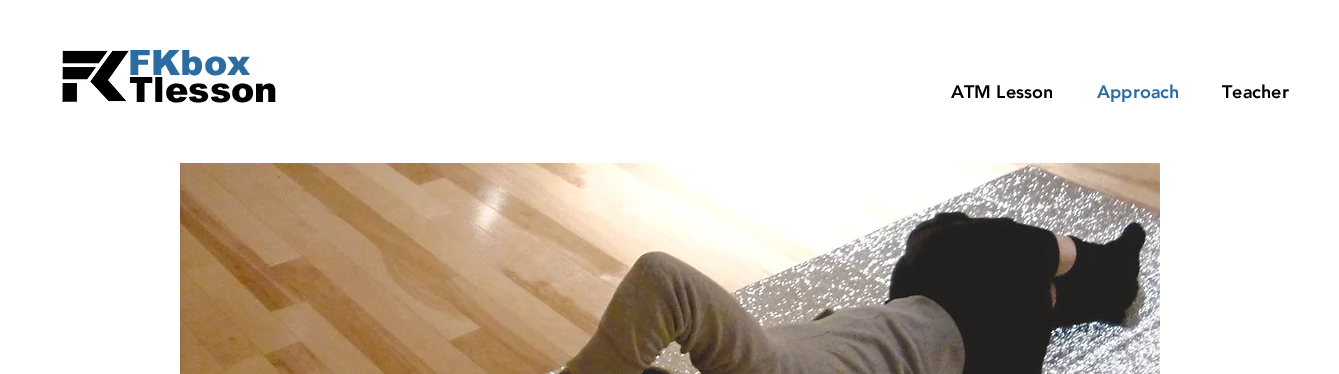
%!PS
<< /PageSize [1339 374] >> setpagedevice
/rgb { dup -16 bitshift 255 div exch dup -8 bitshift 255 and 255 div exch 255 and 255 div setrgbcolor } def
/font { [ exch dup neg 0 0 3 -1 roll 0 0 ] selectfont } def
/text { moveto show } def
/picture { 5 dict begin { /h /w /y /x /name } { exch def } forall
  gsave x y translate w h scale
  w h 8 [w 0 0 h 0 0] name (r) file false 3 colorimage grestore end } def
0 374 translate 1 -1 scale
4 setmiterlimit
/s1 { /arial-Black 35 font 16#000000 rgb } def
/s2 { /arial-Black 35 font 16#2B6CA3 rgb } def
/s3 { /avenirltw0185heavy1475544-Black 18 font 16#000000 rgb } def
/s4 { /avenirltw0185heavy1475544-Black 18 font 16#2B6CA3 rgb } def
16#FFFFFF rgb
0 0 1339 374 rectfill
s1
(Tlesson) 128 102 text
(pic1.raw) 62 50 68 52 picture
s2
(FKbox) 128 75 text
s3
(ATM Lesson) 951 98 text
s4
(Approach) 1097 98 text
s3
(Teacher) 1222 98 text
(pic2.raw) 180 163 980 211 picture
showpage
